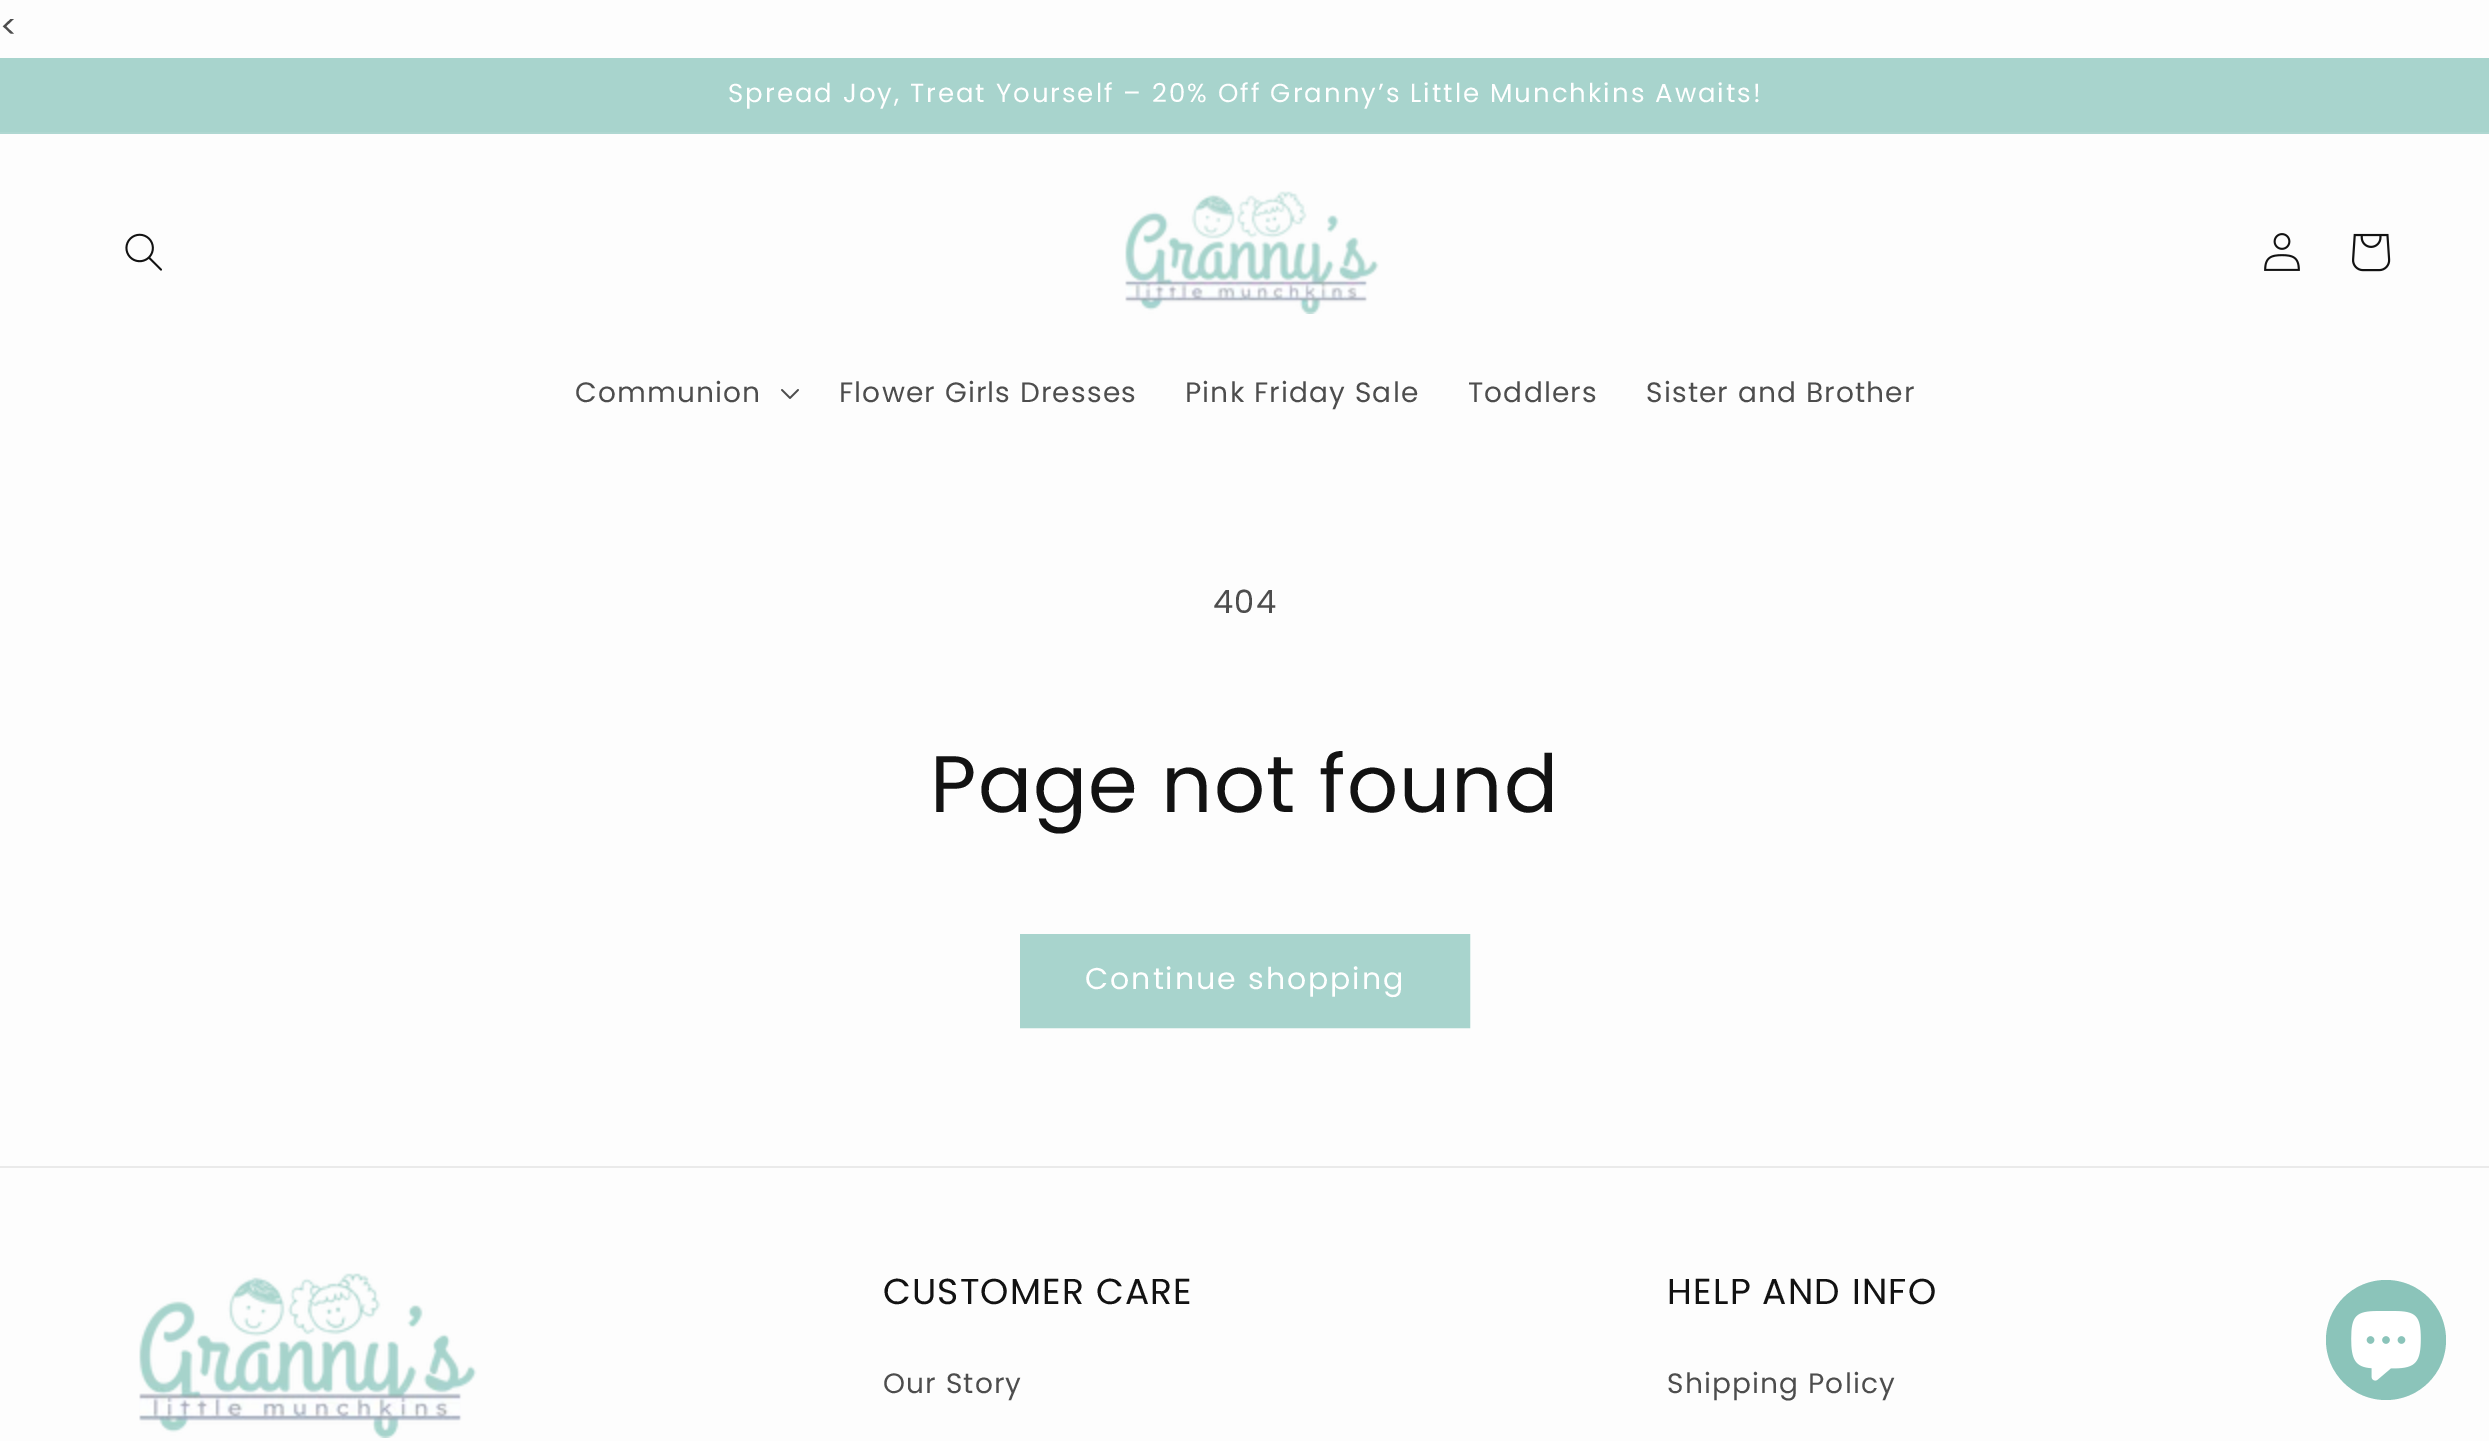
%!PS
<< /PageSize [2489 1441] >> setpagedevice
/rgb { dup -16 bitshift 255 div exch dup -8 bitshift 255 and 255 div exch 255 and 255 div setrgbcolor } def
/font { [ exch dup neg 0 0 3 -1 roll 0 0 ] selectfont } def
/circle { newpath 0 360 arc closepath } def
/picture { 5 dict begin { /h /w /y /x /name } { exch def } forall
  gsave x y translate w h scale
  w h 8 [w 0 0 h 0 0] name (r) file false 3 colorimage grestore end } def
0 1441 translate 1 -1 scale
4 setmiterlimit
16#FDFDFD rgb
0 0 2489 1441 rectfill
/Poppins-Regular 32 font
16#4D4D4D rgb
0 38 moveto 1.2 0 (<) ashow
16#A8D4CD rgb
0 58 2489 74 rectfill
16#AFD7D1 rgb
0 132 2489 2 rectfill
/Poppins-Regular 26 font
16#FFFFFF rgb
728 102 moveto 2 0 (Spread Joy, Treat Yourself – 20% Off Granny’s Little Munchkins Awaits!) ashow
(pic1.raw) 125 233 37 38 picture
(pic2.raw) 1125 191 254 123 picture
(pic3.raw) 2264 233 36 38 picture
(pic4.raw) 2352 233 39 39 picture
/Poppins-Regular 28 font
16#4D4D4D rgb
575 402 moveto 1.2 0 (Communion) ashow
(pic5.raw) 781 389 18 10 picture
839 402 moveto 1.2 0 (Flower Girls Dresses) ashow
1185 402 moveto 1.2 0 (Pink Friday Sale) ashow
1468 402 moveto 1.2 0 (Toddlers) ashow
1646 402 moveto 1.2 0 (Sister and Brother) ashow
/Poppins-Regular 32 font
1213 613 moveto 1.2 0 (404) ashow
/Poppins-Regular 80 font
16#121212 rgb
930 812 moveto 1.2 0 (Page not found) ashow
16#A8D4CD rgb
2 setlinewidth
1021 935 448 92 rectstroke
1022 936 446 90 rectfill
/Poppins-Regular 30 font
16#FFFFFF rgb
1085 989 moveto 2 0 (Continue shopping) ashow
16#EAEAEA rgb
0 1166 2489 2 rectfill
(pic6.raw) 139 1273 338 165 picture
/Poppins-Regular 36 font
16#121212 rgb
883 1304 moveto 1.2 0 (CUSTOMER CARE) ashow
/Poppins-Regular 28 font
16#4D4D4D rgb
883 1393 moveto 1.2 0 (Our Story) ashow
/Poppins-Regular 36 font
16#121212 rgb
1667 1304 moveto 1.2 0 (HELP AND INFO) ashow
/Poppins-Regular 28 font
16#4D4D4D rgb
1667 1393 moveto 1.2 0 (Shipping Policy) ashow
16#8BC4BA rgb
2386 1340 60 circle fill
(pic7.raw) 2351 1311 70 70 picture
showpage
